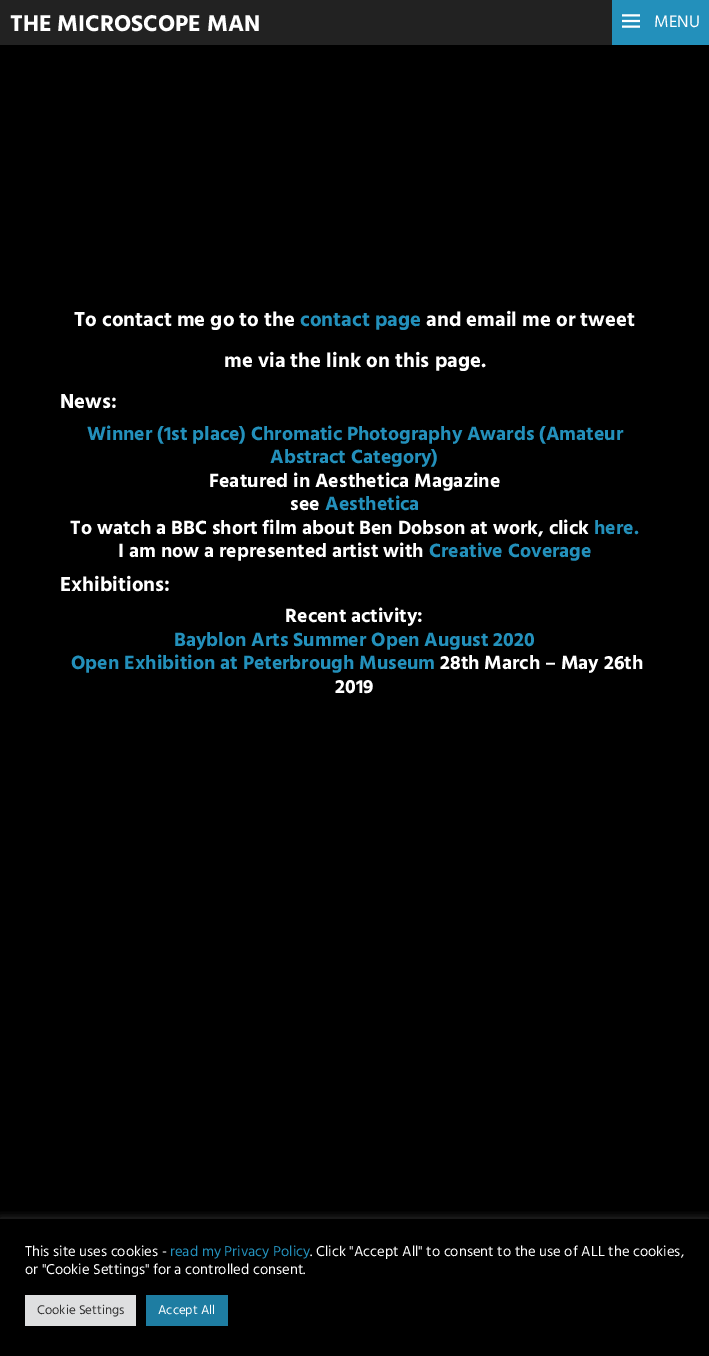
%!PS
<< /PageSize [709 1356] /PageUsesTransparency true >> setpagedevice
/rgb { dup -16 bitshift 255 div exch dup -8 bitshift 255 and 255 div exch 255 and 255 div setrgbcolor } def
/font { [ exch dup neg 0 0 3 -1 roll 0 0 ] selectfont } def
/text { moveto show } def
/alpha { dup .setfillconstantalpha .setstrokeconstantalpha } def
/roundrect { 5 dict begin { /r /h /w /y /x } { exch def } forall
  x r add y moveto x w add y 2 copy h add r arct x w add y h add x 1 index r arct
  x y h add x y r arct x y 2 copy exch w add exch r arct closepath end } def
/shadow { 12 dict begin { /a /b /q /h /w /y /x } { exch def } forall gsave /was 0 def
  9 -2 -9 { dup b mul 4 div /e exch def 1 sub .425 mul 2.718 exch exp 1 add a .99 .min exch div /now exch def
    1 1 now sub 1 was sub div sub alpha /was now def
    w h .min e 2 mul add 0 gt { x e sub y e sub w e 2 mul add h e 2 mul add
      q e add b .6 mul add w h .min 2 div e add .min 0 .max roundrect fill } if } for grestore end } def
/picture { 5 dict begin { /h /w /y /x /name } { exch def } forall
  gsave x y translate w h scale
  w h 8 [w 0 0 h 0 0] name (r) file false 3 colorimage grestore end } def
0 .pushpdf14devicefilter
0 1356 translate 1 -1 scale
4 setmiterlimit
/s1 { /Hind-Bold 23.4 font 16#FFFFFF rgb } def
/s2 { /Hind-Regular 17 font 16#FFFFFF rgb } def
/s3 { /Hind-Bold 20.6 font 16#FFFFFF rgb } def
/s4 { /Hind-Bold 20.6 font 16#2390BB rgb } def
/s5 { /Hind-Bold 19.65 font 16#2390BB rgb } def
/s6 { /Hind-Bold 19.65 font 16#FFFFFF rgb } def
/s7 { /Hind-Regular 14.7 font 16#FFFFFF rgb } def
/s8 { /Hind-Regular 14.7 font 16#2390BB rgb } def
/s9 { /Hind-Regular 13 font 16#333333 rgb } def
/s10 { /Hind-Regular 13 font 16#FFFFFF rgb } def
16#000000 rgb
0 0 709 1356 rectfill
16#222222 rgb
0 0 612 45 rectfill
s1
(THE MICROSCOPE MAN) 10 31 text
16#2390BB rgb
612 0 97 45 rectfill
(pic1.raw) 622 14 18 14 picture
s2
(MENU) 654 27 text
s3
(To contact me go to the) 74 326 text
s4
(contact page) 300 326 text
s3
(and email me or tweet) 426 326 text
(me via the link on this page.) 224 367 text
(News:) 60 408 text
s5
(Winner \(1st place\) Chromatic Photography Awards \(Amateur) 87 440 text
(Abstract Category\)) 270 463 text
s6
(Featured in Aesthetica Magazine) 209 487 text
(see) 290 510 text
s5
(Aesthetica) 325 510 text
s6
(To watch a BBC short film about Ben Dobson at work, click) 70 534 text
s5
(here.) 594 534 text
s6
(I am now a represented artist with) 118 557 text
s5
(Creative Coverage) 429 557 text
s3
(Exhibitions:) 60 591 text
s6
(Recent activity:) 285 622 text
s5
(Bayblon Arts Summer Open August 2020) 174 646 text
(Open Exhibition at Peterbrough Museum) 71 669 text
s6
(28th March – May 26th) 440 669 text
(2019) 335 693 text
gsave
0 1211 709 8 rectclip
16#ACABAB rgb
0 1218 709 137 0 5 0.3 shadow
grestore
s7
(This site uses cookies -) 25 1256 text
s8
(read my Privacy Policy) 170 1256 text
s7
(. Click "Accept All" to consent to the use of ALL the cookies,) 310 1256 text
(or "Cookie Settings" for a controlled consent.) 25 1274 text
16#DEDFE0 rgb
25 1295 111 31 rectfill
s9
(Cookie Settings) 37 1314 text
16#1E7DA2 rgb
146 1295 82 31 rectfill
s10
(Accept All) 158 1314 text
.poppdf14devicefilter showpage
